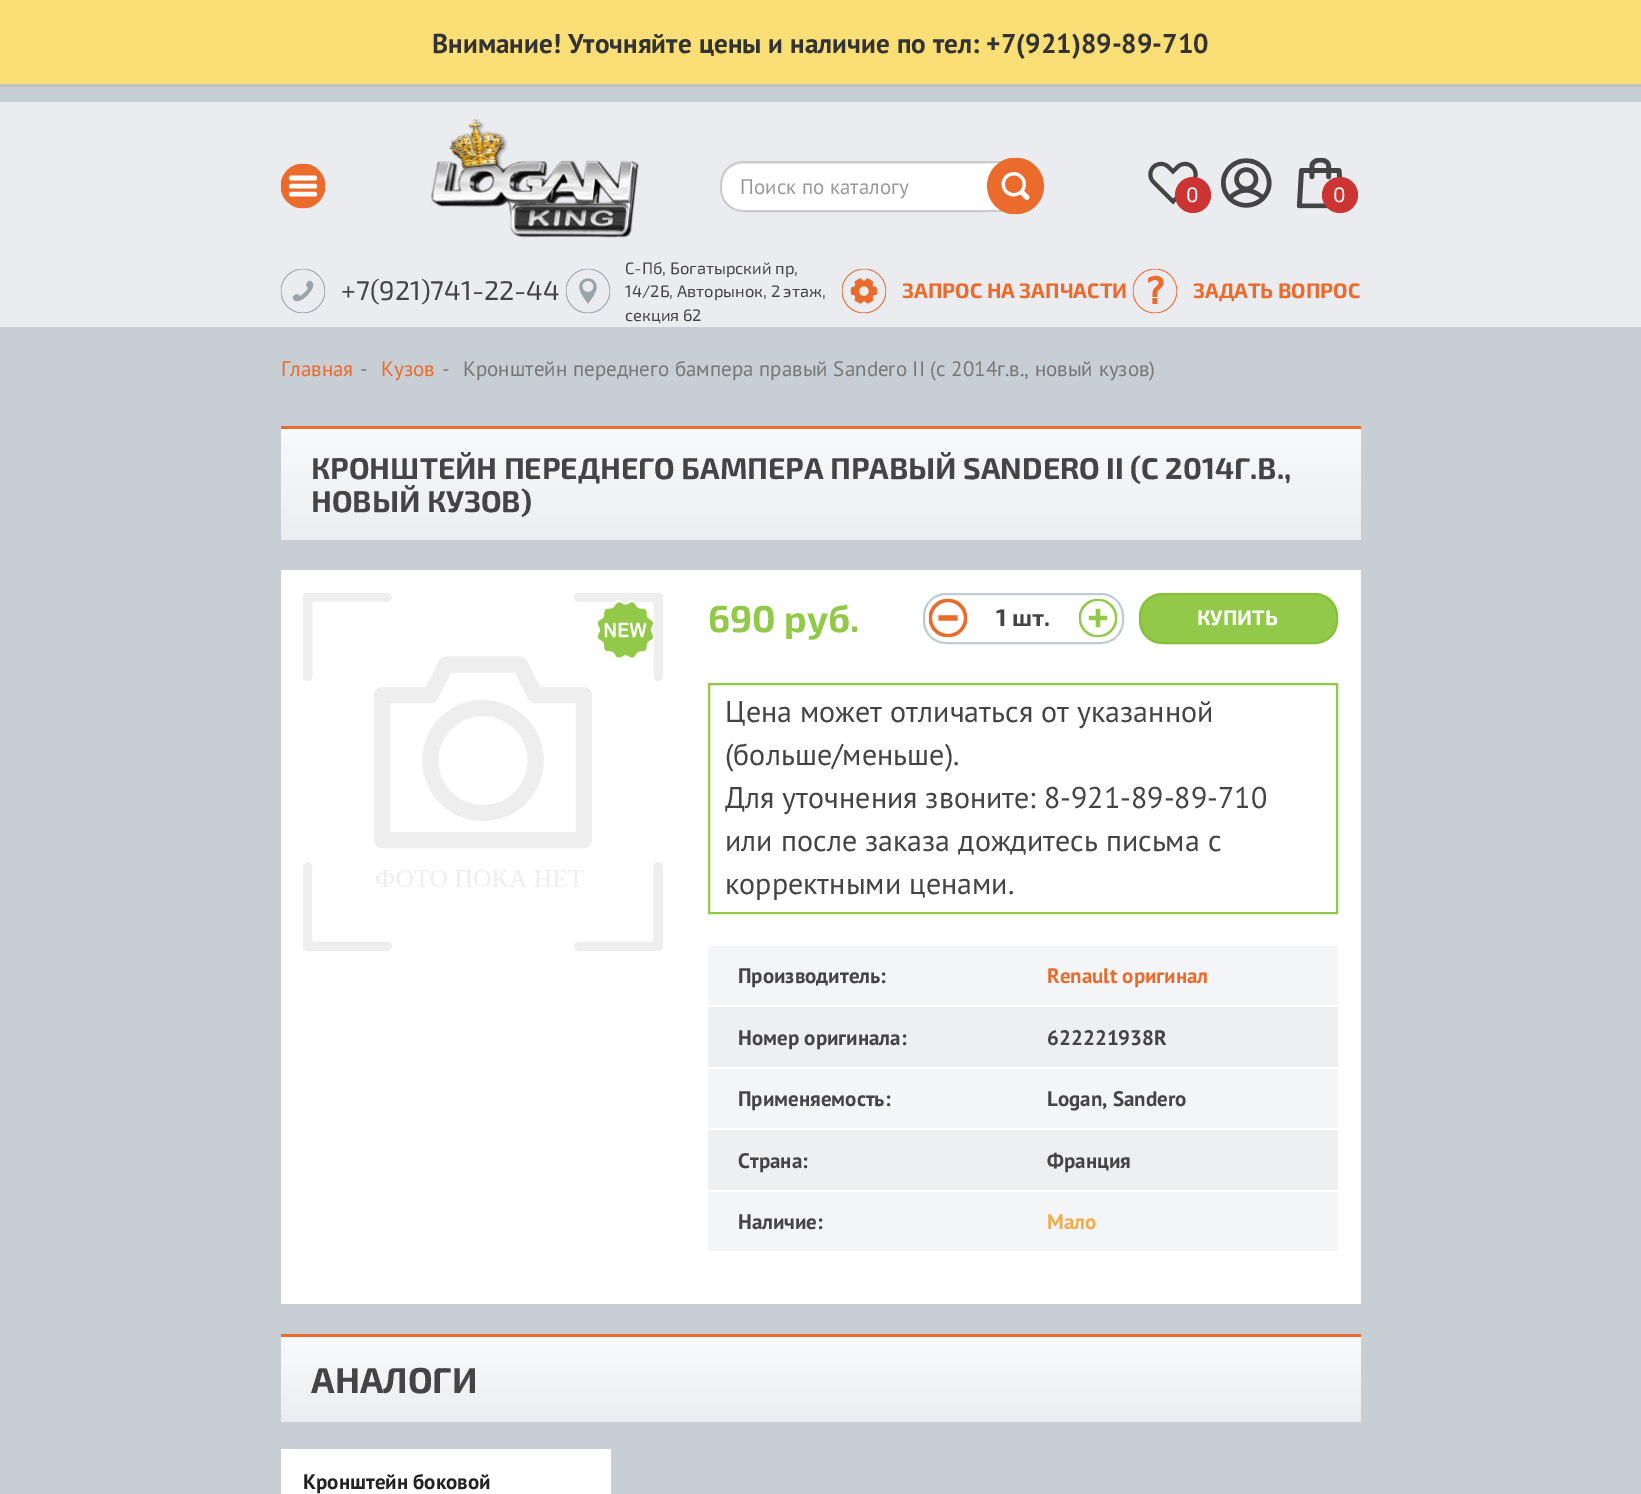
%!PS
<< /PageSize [1641 1494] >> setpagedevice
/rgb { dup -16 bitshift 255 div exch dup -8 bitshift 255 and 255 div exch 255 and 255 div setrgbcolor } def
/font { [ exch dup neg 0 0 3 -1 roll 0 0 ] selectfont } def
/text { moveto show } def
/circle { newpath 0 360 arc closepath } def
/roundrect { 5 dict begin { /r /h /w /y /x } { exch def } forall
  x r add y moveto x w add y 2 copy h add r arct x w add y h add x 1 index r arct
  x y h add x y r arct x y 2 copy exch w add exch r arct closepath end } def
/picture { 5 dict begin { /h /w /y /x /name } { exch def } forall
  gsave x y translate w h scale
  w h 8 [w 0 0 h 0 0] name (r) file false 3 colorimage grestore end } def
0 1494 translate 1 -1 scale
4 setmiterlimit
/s1 { /PTSans-Bold 27.3 font 16#333333 rgb } def
/s2 { /PTSans-Regular 21 font 16#999999 rgb } def
/s3 { /Exo2-Regular 21 font 16#FFFFFF rgb } def
/s4 { /Exo2-Regular 27 font 16#444444 rgb } def
/s5 { /Exo2-Regular 16.5 font 16#444444 rgb } def
/s6 { /Exo2-Bold 21 font 16#EB6B2C rgb } def
/s7 { /PTSans-Regular 21 font 16#EB6B2C rgb } def
/s8 { /PTSans-Regular 21 font 16#777777 rgb } def
/s9 { /Exo2-Bold 30 font 16#444444 rgb } def
/s10 { /Exo2-Bold 37.5 font 16#92C949 rgb } def
/s11 { /Exo2-Bold 24 font 16#444444 rgb } def
/s12 { /Exo2-Bold 21 font 16#FFFFFF rgb } def
/s13 { /PTSans-Regular 30 font 16#444444 rgb } def
/s14 { /PTSans-Bold 21 font 16#444444 rgb } def
/s15 { /PTSans-Bold 21 font 16#EB6B2C rgb } def
/s16 { /PTSans-Bold 21 font 16#F0AD4E rgb } def
/s17 { /Exo2-Bold 36 font 16#444444 rgb } def
/s18 { /PTSans-Bold 21 font 16#222222 rgb } def
16#C7CFD4 rgb
0 0 1641 1494 rectfill
16#FADF76 rgb
0 0 1641 84 rectfill
16#C0C0C0 rgb
0 84 1641 3 rectfill
s1
(Внимание! Уточняйте цены и наличие по тел: +7\(921\)89-89-710) 432 53 text
16#EBECF0 rgb
0 102 1641 225 rectfill
(pic1.raw) 280 163 46 46 picture
(pic2.raw) 430 118 209 120 picture
16#FFFFFF rgb
720 161 324 51 23 roundrect fill
16#ECECEC rgb
742 164 moveto 1022 164 lineto 1033 164 1042 173 1042 184 curveto 1042 190 lineto 1042 194 1041 198 1039 201 curveto 1042 197 1043 193 1043 189 curveto 1043 183 lineto 1043 171 1034 162 1022 162 curveto 743 162 lineto 731 162 722 171 722 183 curveto 722 184 lineto 722 173 731 164 742 164 curveto closepath fill
16#CCCCCC rgb
2 setlinewidth
721 162 322 49 22 roundrect stroke
s2
(Поиск по каталогу) 740 194 text
(pic3.raw) 987 157 57 58 picture
(pic4.raw) 1148 161 50 44 picture
16#CC3333 rgb
1193 195 18 circle fill
s3
(0) 1186 202 text
(pic5.raw) 1221 158 51 50 picture
(pic6.raw) 1296 157 46 52 picture
16#CC3333 rgb
1340 195 18 circle fill
s3
(0) 1333 202 text
(pic7.raw) 280 268 46 46 picture
s4
(+7\(921\)741-22-44) 341 300 text
(pic8.raw) 565 268 46 46 picture
s5
(С-Пб, Богатырский пр,) 625 274 text
(14/2Б, Авторынок, 2 этаж,) 625 297 text
(секция 62) 625 321 text
(pic9.raw) 841 268 46 46 picture
s6
(ЗАПРОС НА ЗАПЧАСТИ) 902 298 text
(pic10.raw) 1132 268 46 46 picture
(ЗАДАТЬ ВОПРОС) 1193 298 text
s7
(Главная) 281 376 text
s8
(-) 360 376 text
s7
(Кузов) 381 376 text
s8
(-) 442 376 text
(Кронштейн переднего бампера правый Sandero II \(с 2014г.в., новый кузов\)) 463 376 text
gsave 281 429 moveto 1361 429 lineto 1361 540 lineto 281 540 lineto closepath clip newpath
<< /ShadingType 2 /ColorSpace /DeviceRGB /Coords [821 429 821 540] /Extend [true true] /Function << /FunctionType 2 /Domain [0 1] /C0 [0.976 0.98 0.988] /C1 [0.925 0.929 0.937] /N 1 >> >> shfill grestore
16#EB6B2C rgb
281 426 1080 3 rectfill
s9
(КРОНШТЕЙН ПЕРЕДНЕГО БАМПЕРА ПРАВЫЙ SANDERO II \(С 2014Г.В.,) 311 479 text
(НОВЫЙ КУЗОВ\)) 311 512 text
16#FFFFFF rgb
281 570 1080 734 rectfill
(pic11.raw) 303 593 360 358 picture
(pic12.raw) 597 600 58 58 picture
s10
(690 руб.) 708 632 text
16#C2CBD0 rgb
924 594 199 49 22 roundrect stroke
(pic13.raw) 928 598 40 40 picture
s11
(1 шт.) 996 626 text
(pic14.raw) 1078 598 40 40 picture
16#92C949 rgb
1140 594 197 49 22 roundrect gsave fill grestore
16#86C039 rgb
stroke
s12
(КУПИТЬ) 1197 625 text
16#92C949 rgb
709 684 628 229 rectstroke
s13
(Цена может отличаться от указанной) 725 722 text
(\(больше/меньше\).) 725 765 text
(Для уточнения звоните: 8-921-89-89-710) 725 808 text
(или после заказа дождитесь письма с) 725 851 text
(корректными ценами.) 725 894 text
16#EEEFF1 rgb
708 1007 630 183 rectfill
16#F4F5F7 rgb
708 946 630 59 rectfill
s14
(Производитель:) 738 983 text
s15
(Renault оригинал) 1047 983 text
s14
(Номер оригинала:) 738 1045 text
(622221938R) 1047 1045 text
16#F4F5F7 rgb
708 1069 630 59 rectfill
s14
(Применяемость:) 738 1106 text
16#FFFFFF rgb
708 1067 632 2 rectfill
s14
(Logan, Sandero) 1047 1106 text
(Страна:) 738 1168 text
16#FFFFFF rgb
708 1128 632 2 rectfill
s14
(Франция) 1047 1168 text
16#F4F5F7 rgb
708 1192 630 59 rectfill
s14
(Наличие:) 738 1229 text
s16
(Мало) 1047 1229 text
gsave 281 1337 moveto 1361 1337 lineto 1361 1422 lineto 281 1422 lineto closepath clip newpath
<< /ShadingType 2 /ColorSpace /DeviceRGB /Coords [821 1337 821 1422] /Extend [true true] /Function << /FunctionType 2 /Domain [0 1] /C0 [0.976 0.98 0.988] /C1 [0.925 0.929 0.937] /N 1 >> >> shfill grestore
16#EB6B2C rgb
281 1334 1080 3 rectfill
s17
(АНАЛОГИ) 311 1393 text
16#FFFFFF rgb
281 1449 330 45 rectfill
s18
(Кронштейн боковой) 303 1489 text
showpage
